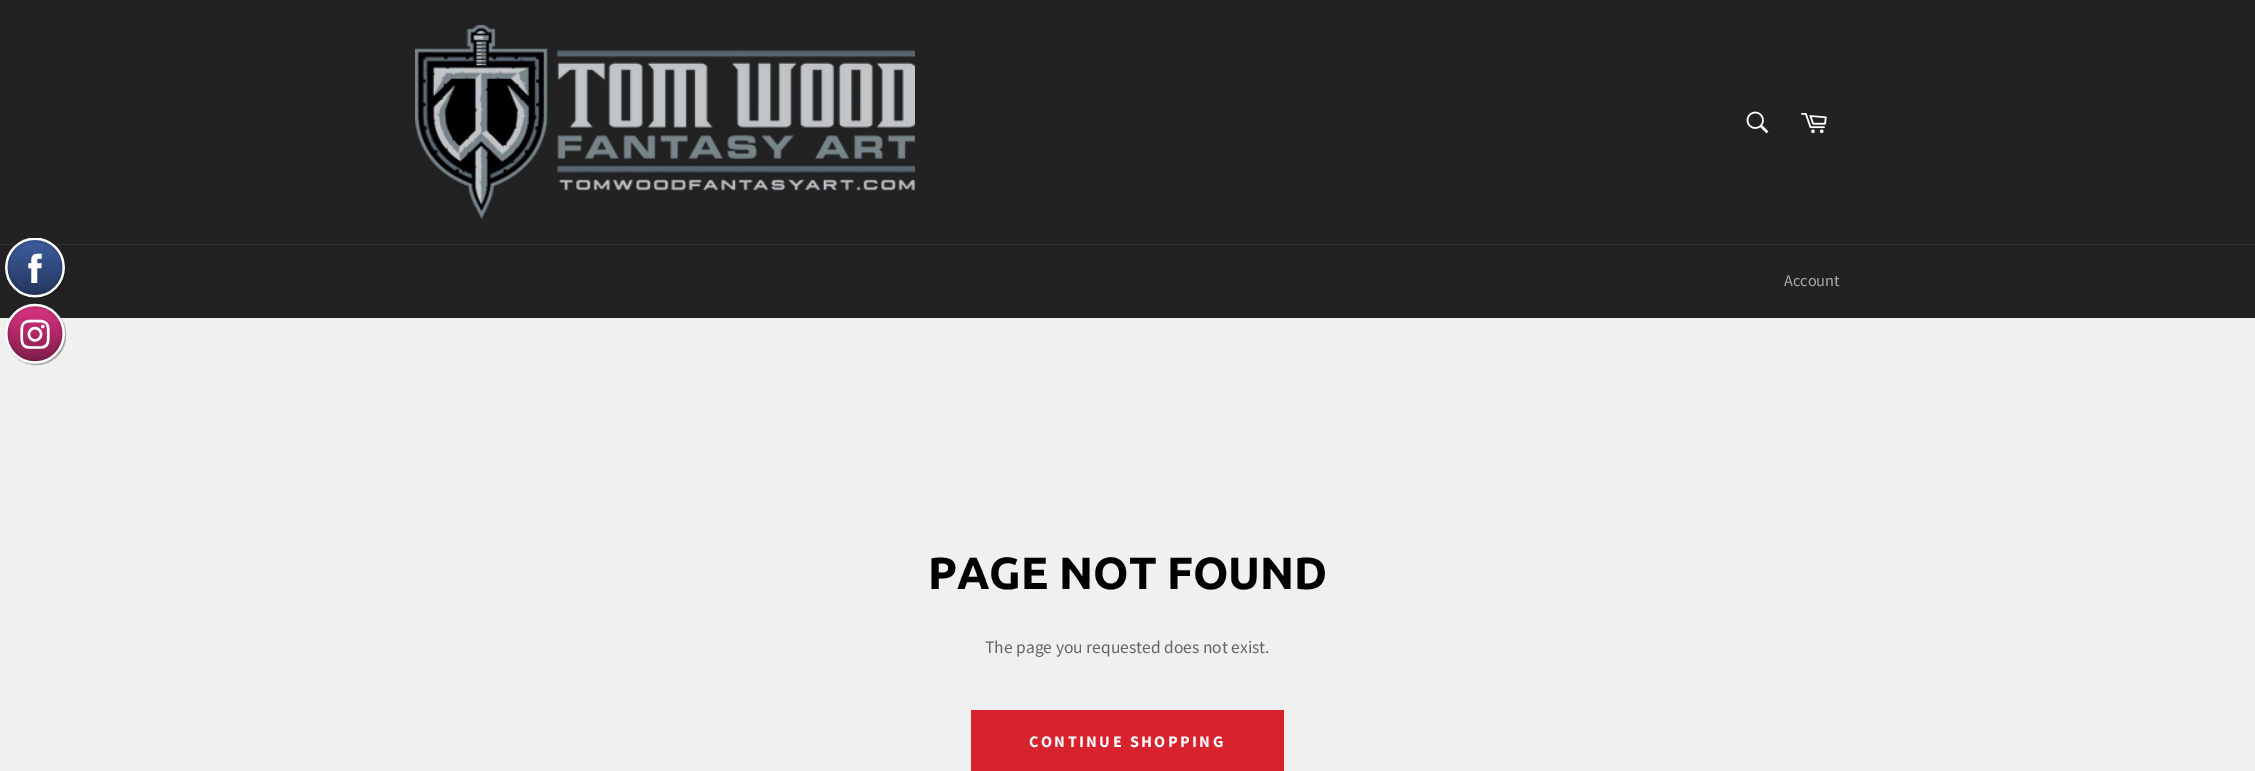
%!PS
<< /PageSize [2255 771] >> setpagedevice
/rgb { dup -16 bitshift 255 div exch dup -8 bitshift 255 and 255 div exch 255 and 255 div setrgbcolor } def
/font { [ exch dup neg 0 0 3 -1 roll 0 0 ] selectfont } def
/text { moveto show } def
/picture { 5 dict begin { /h /w /y /x /name } { exch def } forall
  gsave x y translate w h scale
  w h 8 [w 0 0 h 0 0] name (r) file false 3 colorimage grestore end } def
0 771 translate 1 -1 scale
4 setmiterlimit
/s1 { /SourceSansPro-Regular 16.25 font 16#A7A7A7 rgb } def
/s2 { /Ubuntu-Bold 45 font 16#000000 rgb } def
/s3 { /SourceSansPro-Regular 17.5 font 16#666666 rgb } def
16#F0F0F0 rgb
0 0 2255 771 rectfill
16#222222 rgb
0 0 2255 244 rectfill
0 245 2255 73 rectfill
16#2F2F2F rgb
0 244 2255 1 rectfill
(pic1.raw) 5 238 61 128 picture
(pic2.raw) 415 25 500 194 picture
(pic3.raw) 1746 111 23 23 picture
(pic4.raw) 1801 113 26 21 picture
s1
(Account) 1784 286 text
s2
(PAGE NOT FOUND) 928 589 text
s3
(The page you requested does not exist.) 985 653 text
16#D8232F rgb
971 710 313 61 rectfill
/SourceSansPro-Bold 16.25 font
16#FFFFFF rgb
1029 747 moveto 2.4 0 (CONTINUE SHOPPING) ashow
showpage
